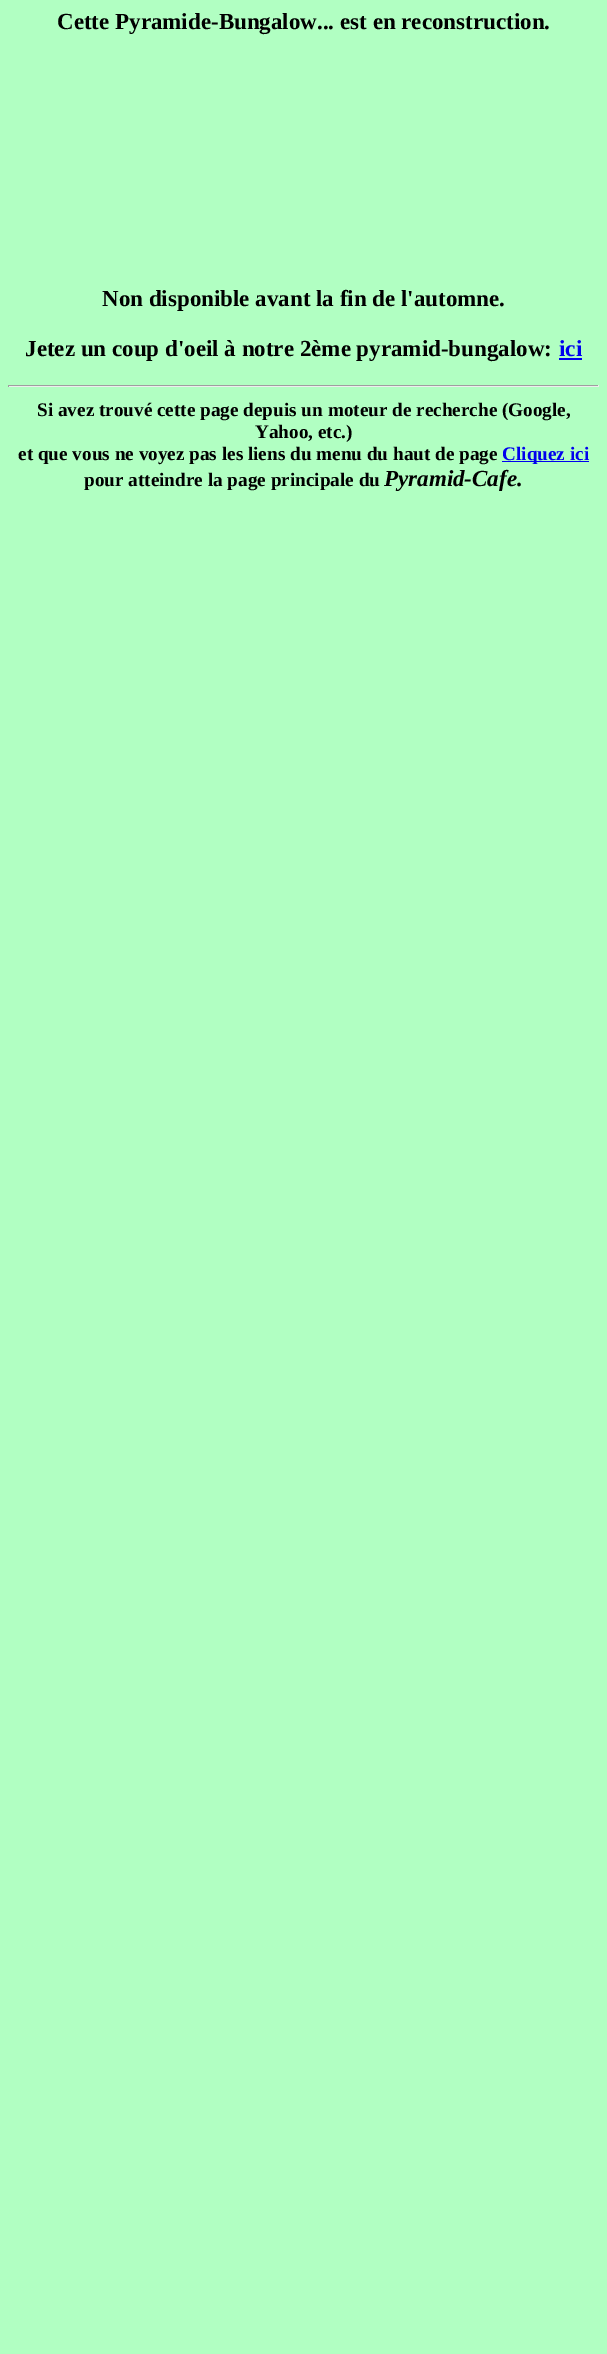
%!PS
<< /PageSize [607 2354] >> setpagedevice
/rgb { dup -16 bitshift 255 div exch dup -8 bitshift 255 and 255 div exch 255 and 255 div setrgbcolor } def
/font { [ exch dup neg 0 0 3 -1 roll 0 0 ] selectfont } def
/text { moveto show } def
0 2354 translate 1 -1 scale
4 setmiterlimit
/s1 { /LiberationSerif-Bold 23 font 16#000000 rgb } def
/s2 { /LiberationSerif-Bold 23 font 16#0000EE rgb } def
/s3 { /LiberationSerif-Bold 19.2 font 16#000000 rgb } def
/s4 { /LiberationSerif-Bold 19.2 font 16#0000EE rgb } def
/s5 { /LiberationSerif-BoldItalic 23 font 16#000000 rgb } def
16#B1FFC2 rgb
0 0 607 2354 rectfill
s1
(Cette Pyramide-Bungalow... est en reconstruction.) 57 29 text
(Non disponible avant la fin de l'automne.) 102 306 text
(Jetez un coup d'oeil à notre 2ème pyramid-bungalow:) 25 356 text
s2
(ici) 559 356 text
559 358 23 2 rectfill
16#9F9F9F rgb
8 385 591 1 rectfill
16#EEEEEE rgb
598 385 1 2 rectfill
8 386 591 1 rectfill
16#9F9F9F rgb
8 385 1 2 rectfill
s3
(Si avez trouvé cette page depuis un moteur de recherche \(Google,) 37 416 text
(Yahoo, etc.\)) 255 438 text
(et que vous ne voyez pas les liens du menu du haut de page) 18 460 text
16#0000EE rgb
502 461 87 1 rectfill
(Cliquez ici) 502 460 text
s3
(pour atteindre la page principale du) 84 486 text
s5
(Pyramid-Cafe.) 384 486 text
showpage
